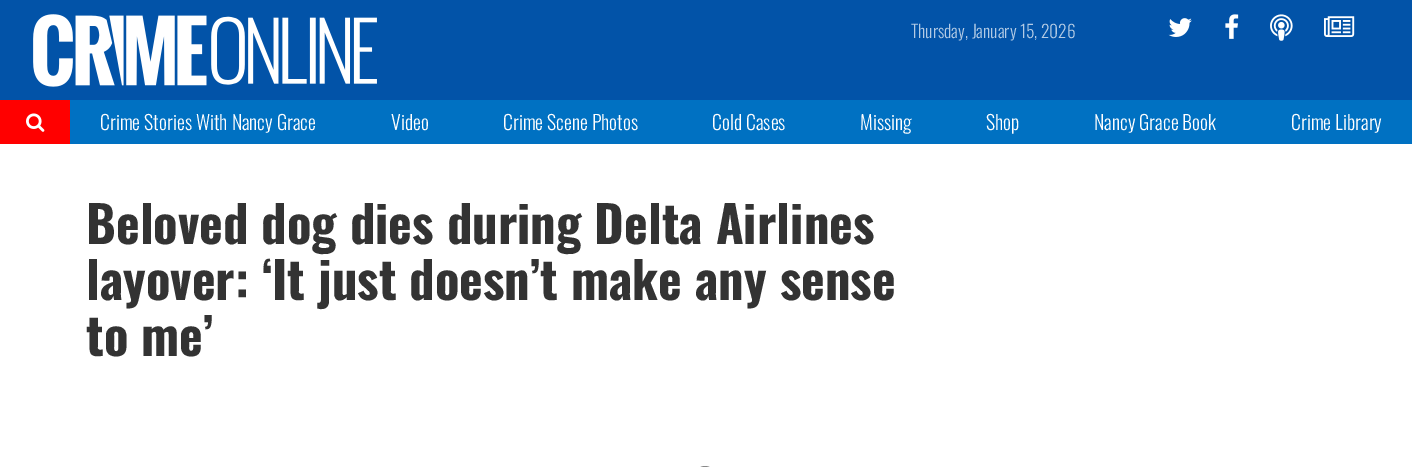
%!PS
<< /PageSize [1412 467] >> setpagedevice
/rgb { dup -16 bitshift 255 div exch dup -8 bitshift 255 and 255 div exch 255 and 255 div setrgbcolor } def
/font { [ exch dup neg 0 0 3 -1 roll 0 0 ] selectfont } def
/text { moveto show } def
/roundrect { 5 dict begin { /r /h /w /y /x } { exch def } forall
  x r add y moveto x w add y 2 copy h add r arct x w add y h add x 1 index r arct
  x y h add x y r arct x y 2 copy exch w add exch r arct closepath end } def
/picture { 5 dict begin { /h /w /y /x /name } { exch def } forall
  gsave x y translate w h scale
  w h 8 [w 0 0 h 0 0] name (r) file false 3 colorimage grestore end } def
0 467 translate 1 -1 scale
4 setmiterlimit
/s1 { /Oswald-Light 17.5 font 16#B3CBE5 rgb } def
/s2 { /Oswald-Light 19.75 font 16#FFFFFF rgb } def
/s3 { /Oswald-Bold 50.6 font 16#333333 rgb } def
16#FFFFFF rgb
0 0 1412 467 rectfill
16#0253A8 rgb
0 0 1412 100 rectfill
(pic1.raw) 33 14 344 73 picture
s1
(Thursday, January 15, 2026) 911 38 text
(pic2.raw) 1168 18 24 19 picture
(pic3.raw) 1225 14 14 25 picture
(pic4.raw) 1270 14 23 27 picture
(pic5.raw) 1324 16 31 21 picture
16#0071C2 rgb
70 100 1342 44 rectfill
16#FF0000 rgb
0 100 70 44 rectfill
(pic6.raw) 26 113 19 19 picture
s2
(Crime Stories With Nancy Grace) 100 130 text
(Video) 391 130 text
(Crime Scene Photos) 503 130 text
(Cold Cases) 712 130 text
(Missing) 860 130 text
(Shop) 986 130 text
(Nancy Grace Book) 1094 130 text
(Crime Library) 1291 130 text
s3
(Beloved dog dies during Delta Airlines) 86 244 text
(layover: ‘It just doesn’t make any sense) 86 300 text
(to me’) 86 356 text
16#F9F9F9 rgb
694.5 466.5 21 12 10.5 roundrect stroke
16#888888 rgb
694.5 466.5 21 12 10.5 roundrect stroke
showpage
